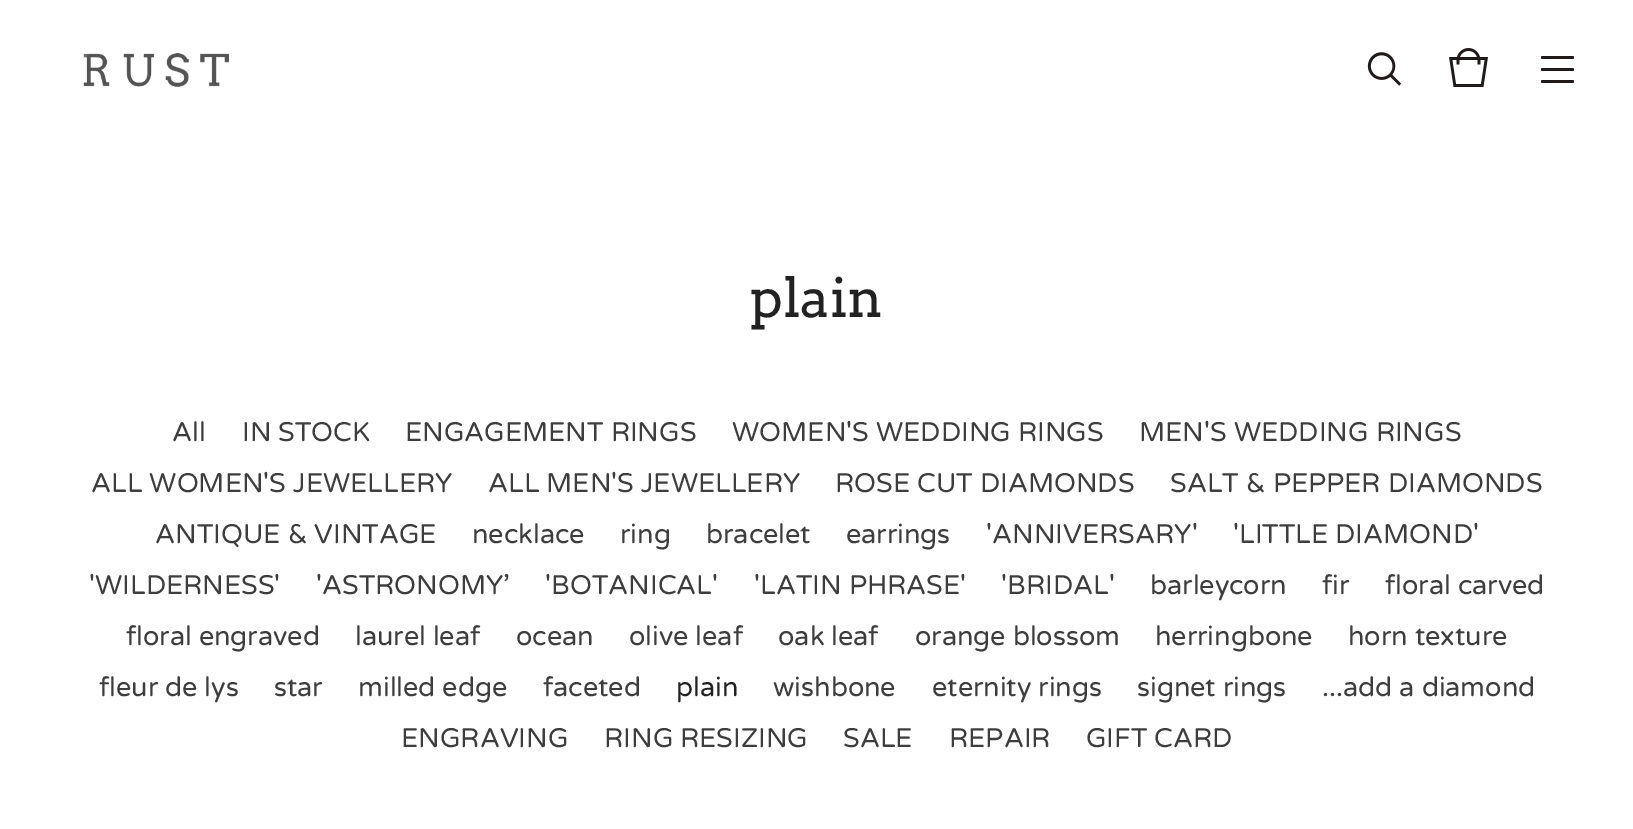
%!PS
<< /PageSize [1633 829] >> setpagedevice
/rgb { dup -16 bitshift 255 div exch dup -8 bitshift 255 and 255 div exch 255 and 255 div setrgbcolor } def
/font { [ exch dup neg 0 0 3 -1 roll 0 0 ] selectfont } def
/text { moveto show } def
/roundrect { 5 dict begin { /r /h /w /y /x } { exch def } forall
  x r add y moveto x w add y 2 copy h add r arct x w add y h add x 1 index r arct
  x y h add x y r arct x y 2 copy exch w add exch r arct closepath end } def
/picture { 5 dict begin { /h /w /y /x /name } { exch def } forall
  gsave x y translate w h scale
  w h 8 [w 0 0 h 0 0] name (r) file false 3 colorimage grestore end } def
0 829 translate 1 -1 scale
4 setmiterlimit
/s1 { /Arvo-Regular 54 font 16#232222 rgb } def
/s2 { /VarelaRound-Regular 27 font 16#3D3D3D rgb } def
/s3 { /VarelaRound-Regular 27 font 16#232222 rgb } def
16#FFFFFF rgb
0 0 1633 829 rectfill
(pic1.raw) 83 53 147 34 picture
(pic2.raw) 1367 52 35 34 picture
(pic3.raw) 1449 48 39 39 picture
16#211A1A rgb
1541 56 33 3 1.5 roundrect fill
1541 68 33 3 1.5 roundrect fill
1541 80 33 3 1.5 roundrect fill
s1
(plain) 750 317 text
s2
(All) 172 441 text
(IN STOCK) 242 441 text
(ENGAGEMENT RINGS) 405 441 text
(WOMEN'S WEDDING RINGS) 732 441 text
(MEN'S WEDDING RINGS) 1139 441 text
(ALL WOMEN'S JEWELLERY) 91 492 text
(ALL MEN'S JEWELLERY) 488 492 text
(ROSE CUT DIAMONDS) 835 492 text
(SALT & PEPPER DIAMONDS) 1170 492 text
(ANTIQUE & VINTAGE) 155 543 text
(necklace) 472 543 text
(ring) 620 543 text
(bracelet) 706 543 text
(earrings) 846 543 text
('ANNIVERSARY') 986 543 text
('LITTLE DIAMOND') 1233 543 text
('WILDERNESS') 89 594 text
('ASTRONOMY’) 316 594 text
('BOTANICAL') 545 594 text
('LATIN PHRASE') 754 594 text
('BRIDAL') 1001 594 text
(barleycorn) 1150 594 text
(fir) 1322 594 text
(floral carved) 1385 594 text
(floral engraved) 126 645 text
(laurel leaf) 355 645 text
(ocean) 516 645 text
(olive leaf) 629 645 text
(oak leaf) 778 645 text
(orange blossom) 915 645 text
(herringbone) 1155 645 text
(horn texture) 1348 645 text
(fleur de lys) 99 696 text
(star) 274 696 text
(milled edge) 358 696 text
(faceted) 543 696 text
s3
(plain) 676 696 text
s2
(wishbone) 773 696 text
(eternity rings) 932 696 text
(signet rings) 1137 696 text
(...add a diamond) 1322 696 text
(ENGRAVING) 401 747 text
(RING RESIZING) 604 747 text
(SALE) 843 747 text
(REPAIR) 949 747 text
(GIFT CARD) 1086 747 text
showpage
